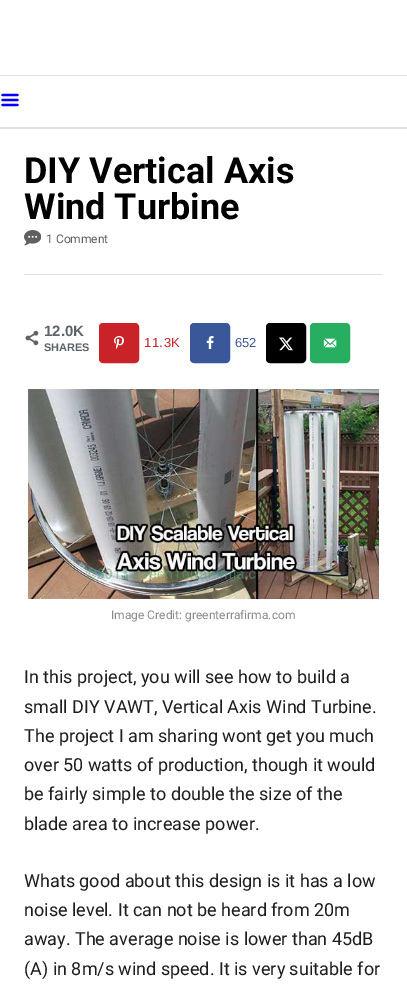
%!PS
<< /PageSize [407 987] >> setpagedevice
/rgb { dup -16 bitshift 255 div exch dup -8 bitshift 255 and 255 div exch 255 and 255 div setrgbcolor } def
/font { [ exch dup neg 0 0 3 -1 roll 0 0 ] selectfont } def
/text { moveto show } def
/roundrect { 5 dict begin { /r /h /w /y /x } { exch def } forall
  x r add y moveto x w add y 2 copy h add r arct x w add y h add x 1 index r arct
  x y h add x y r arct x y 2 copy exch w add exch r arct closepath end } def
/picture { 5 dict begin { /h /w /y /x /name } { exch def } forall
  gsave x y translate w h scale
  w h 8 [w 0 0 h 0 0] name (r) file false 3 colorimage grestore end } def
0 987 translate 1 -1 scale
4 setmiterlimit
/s1 { /Roboto-Bold 36 font 16#000000 rgb } def
/s2 { /Roboto-Regular 12 font 16#606060 rgb } def
/s3 { /LiberationSans-Bold 15 font 16#5D6368 rgb } def
/s4 { /LiberationSans-Bold 11 font 16#5D6368 rgb } def
/s5 { /LiberationSans-Regular 13 font 16#3A579A rgb } def
/s6 { /Roboto-Regular 12 font 16#8C8C8C rgb } def
/s7 { /Roboto-Regular 18 font 16#1E1E1E rgb } def
16#FFFFFF rgb
0 0 407 987 rectfill
16#E1E1E1 rgb
0 127 407 2 rectfill
0 75 407 1 rectfill
(pic1.raw) 1 93 18 14 picture
24 274 359 1 rectfill
s1
(DIY Vertical Axis) 24 183 text
(Wind Turbine) 24 219 text
(pic2.raw) 24 230 17 16 picture
s2
(1 Comment) 46 243 text
(pic3.raw) 25 330 14 16 picture
s3
(12.0K) 44 336 text
s4
(SHARES) 44 351 text
16#C92228 rgb
100 324 38 38 3 roundrect gsave fill grestore
2 setlinewidth
stroke
(pic4.raw) 114 336 10 13 picture
/LiberationSans-Regular 13 font
144 347 moveto 0.5 0 (11.3K) ashow
16#3A579A rgb
191 324 38 38 3 roundrect gsave fill grestore
stroke
(pic5.raw) 206 336 8 13 picture
(652) 235 347 text
16#000000 rgb
267 324 38 38 3 roundrect gsave fill grestore
stroke
(pic6.raw) 279 337 14 14 picture
16#27AE60 rgb
311 324 38 38 3 roundrect gsave fill grestore
stroke
(pic7.raw) 323 338 14 10 picture
(pic8.raw) 28 389 351 210 picture
s6
(Image Credit: greenterrafirma.com) 111 619 text
s7
(In this project, you will see how to build a) 24 683 text
(small DIY VAWT, Vertical Axis Wind Turbine.) 24 713 text
(The project I am sharing wont get you much) 24 742 text
(over 50 watts of production, though it would) 24 771 text
(be fairly simple to double the size of the) 24 800 text
(blade area to increase power.) 24 830 text
(Whats good about this design is it has a low) 24 887 text
(noise level. It can not be heard from 20m) 24 916 text
(away. The average noise is lower than 45dB) 24 945 text
(\(A\) in 8m/s wind speed. It is very suitable for) 24 975 text
showpage
